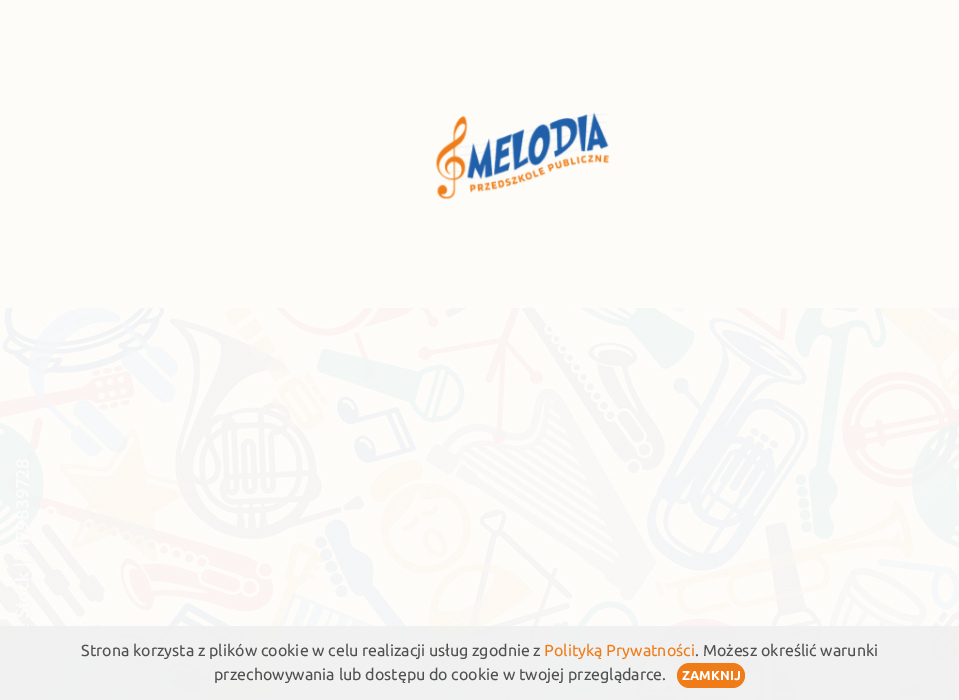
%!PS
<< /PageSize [959 700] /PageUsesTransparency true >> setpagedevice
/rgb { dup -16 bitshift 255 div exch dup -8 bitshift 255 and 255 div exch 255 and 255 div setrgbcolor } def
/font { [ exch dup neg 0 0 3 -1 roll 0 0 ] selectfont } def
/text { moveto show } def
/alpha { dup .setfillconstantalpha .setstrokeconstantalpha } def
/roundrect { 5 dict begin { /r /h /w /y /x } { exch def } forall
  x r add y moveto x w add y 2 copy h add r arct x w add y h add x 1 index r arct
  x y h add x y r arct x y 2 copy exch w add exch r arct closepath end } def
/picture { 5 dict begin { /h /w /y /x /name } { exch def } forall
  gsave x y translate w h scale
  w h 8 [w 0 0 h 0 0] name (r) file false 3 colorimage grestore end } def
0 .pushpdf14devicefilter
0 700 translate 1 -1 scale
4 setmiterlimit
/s1 { /Ubuntu-Regular 16 font 16#505050 rgb } def
/s2 { /Ubuntu-Regular 16 font 16#EF7C19 rgb } def
/s3 { /Ubuntu-Bold 13 font 16#FFFFFF rgb } def
16#FFFFFF rgb
0 0 959 700 rectfill
(pic1.raw) 0 308 959 392 picture
16#FDFCF8 rgb
0 0 959 308 rectfill
(pic2.raw) 435 112 175 88 picture
0.9 alpha
16#F0F0F0 rgb
0 626 959 74 rectfill
1 alpha
s1
(Strona korzysta z plików cookie w celu realizacji usług zgodnie z) 81 656 text
s2
(Polityką Prywatności) 544 656 text
s1
(. Możesz określić warunki) 695 656 text
(przechowywania lub dostępu do cookie w twojej przeglądarce.) 214 680 text
16#EF7C19 rgb
677 663 68 25 12.5 roundrect fill
s3
(ZAMKNIJ) 682 680 text
.poppdf14devicefilter showpage
